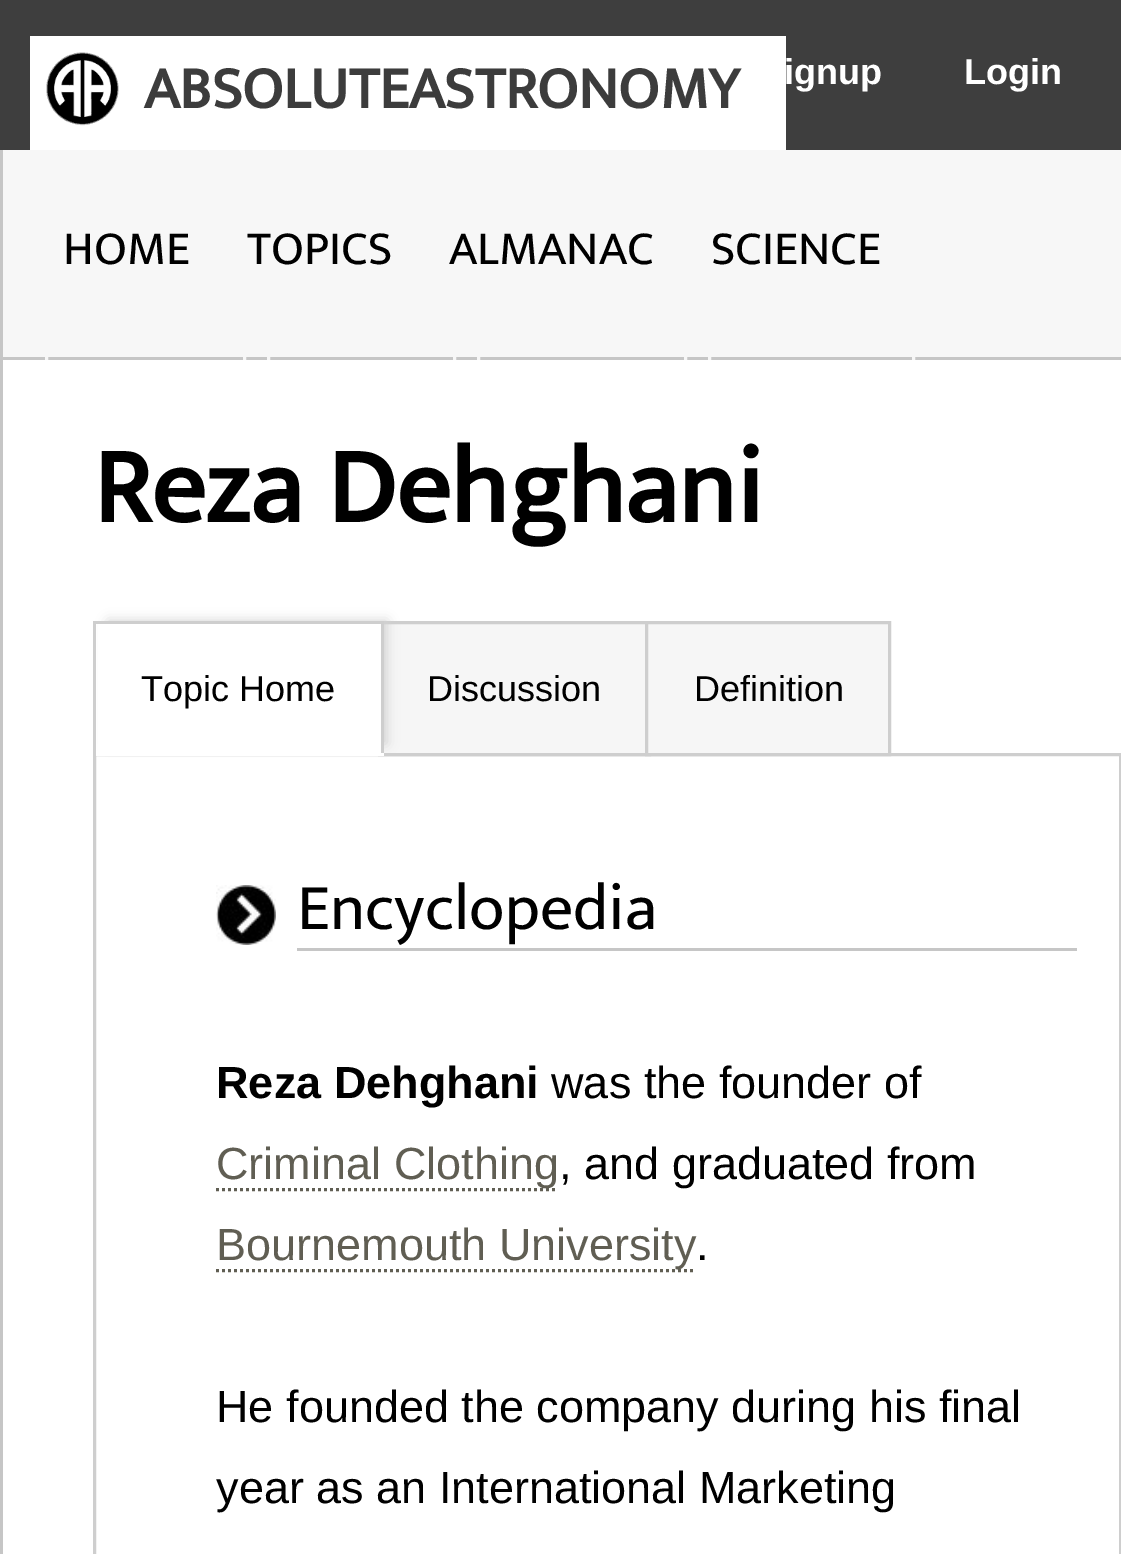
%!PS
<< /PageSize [1121 1554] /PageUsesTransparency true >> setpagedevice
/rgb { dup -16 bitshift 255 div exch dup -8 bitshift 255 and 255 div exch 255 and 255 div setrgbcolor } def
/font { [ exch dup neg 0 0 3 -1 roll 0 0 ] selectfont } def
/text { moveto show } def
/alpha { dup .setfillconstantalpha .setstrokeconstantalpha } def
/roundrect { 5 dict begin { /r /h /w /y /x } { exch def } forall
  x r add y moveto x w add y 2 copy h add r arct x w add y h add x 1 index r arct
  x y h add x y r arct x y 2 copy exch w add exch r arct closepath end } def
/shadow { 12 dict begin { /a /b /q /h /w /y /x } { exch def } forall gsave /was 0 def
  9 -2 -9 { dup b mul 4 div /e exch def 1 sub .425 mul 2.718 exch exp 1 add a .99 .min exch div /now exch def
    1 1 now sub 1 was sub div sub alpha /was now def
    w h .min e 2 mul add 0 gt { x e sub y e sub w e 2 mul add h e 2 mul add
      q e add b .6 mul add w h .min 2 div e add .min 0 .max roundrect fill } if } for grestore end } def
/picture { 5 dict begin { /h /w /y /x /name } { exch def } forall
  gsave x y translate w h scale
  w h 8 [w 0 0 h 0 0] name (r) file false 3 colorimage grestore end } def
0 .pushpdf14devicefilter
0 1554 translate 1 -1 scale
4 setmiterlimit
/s1 { /Mukta-Bold 60 font 16#3C3C3C rgb } def
/s2 { /LiberationSans-Bold 36 font 16#FFFFFF rgb } def
/s3 { /Mukta-Regular 48 font 16#000000 rgb } def
/s4 { /Mukta-Bold 108 font 16#000000 rgb } def
/s5 { /LiberationSans-Regular 36 font 16#000000 rgb } def
/s6 { /Mukta-Regular 66 font 16#000000 rgb } def
/s7 { /LiberationSans-Bold 45 font 16#000000 rgb } def
/s8 { /LiberationSans-Regular 45 font 16#000000 rgb } def
/s9 { /LiberationSans-Regular 45 font 16#605E53 rgb } def
16#FFFFFF rgb
0 0 1121 1554 rectfill
16#3E3E3E rgb
0 0 1121 150 rectfill
16#FFFFFF rgb
30 36 756 114 rectfill
(pic1.raw) 46 52 73 74 picture
s1
(ABSOLUTEASTRONOMY) 144 108 text
s2
(ignup) 784 84 text
(Login) 964 84 text
16#F7F7F7 rgb
3 150 1118 207 rectfill
16#C6C6C6 rgb
0 357 1121 3 rectfill
s3
(HOME) 63 264 text
(TOPICS) 247 264 text
(ALMANAC) 449 264 text
(SCIENCE) 711 264 text
gsave
3 150 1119 210 rectclip
16#F7F7F7 rgb
3 setlinewidth
46.5 316.5 198 123 rectstroke
268.5 316.5 186 123 rectstroke
478.5 316.5 207 123 rectstroke
709.5 316.5 204 123 rectstroke
grestore
16#C6C6C6 rgb
0 150 3 1404 rectfill
s4
(Reza Dehghani) 93 522 text
16#F6F6F6 rgb
384 624 261 129 rectfill
16#CECECE rgb
3 setlinewidth
94.5 754.5 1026 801 rectstroke
379.5 622.5 270 132 rectstroke
16#D1D1D1 rgb
108 621 279 123 0 6 1 shadow
16#FFFFFF rgb
98 624 283 129 rectfill
16#CECECE rgb
93 621 291 3 rectfill
381 621 3 135 rectfill
16#FFFFFF rgb
93 753 291 3 rectfill
16#CECECE rgb
93 621 3 135 rectfill
s5
(Topic Home) 141 701 text
(Discussion) 427 701 text
16#F6F6F6 rgb
646.5 622.5 moveto 889.5 622.5 lineto 889.5 754.5 lineto 646.5 754.5 lineto closepath gsave fill grestore
16#CECECE rgb
stroke
s5
(Definition) 694 701 text
(pic2.raw) 216 885 60 60 picture
16#C6C6C6 rgb
297 948 780 3 rectfill
s6
(Encyclopedia) 297 929 text
s7
(Reza Dehghani) 216 1098 text
s8
(was the founder of) 551 1098 text
16#605E53 rgb
[3 3] 0 setdash
216 1189.5 moveto 558 1189.5 lineto stroke
(Criminal Clothing) 216 1179 text
s8
(, and graduated from) 559 1179 text
16#605E53 rgb
216 1270.5 moveto 696 1270.5 lineto stroke
(Bournemouth University) 216 1260 text
s8
(.) 696 1260 text
(He founded the company during his final) 216 1422 text
(year as an International Marketing) 216 1503 text
.poppdf14devicefilter showpage
